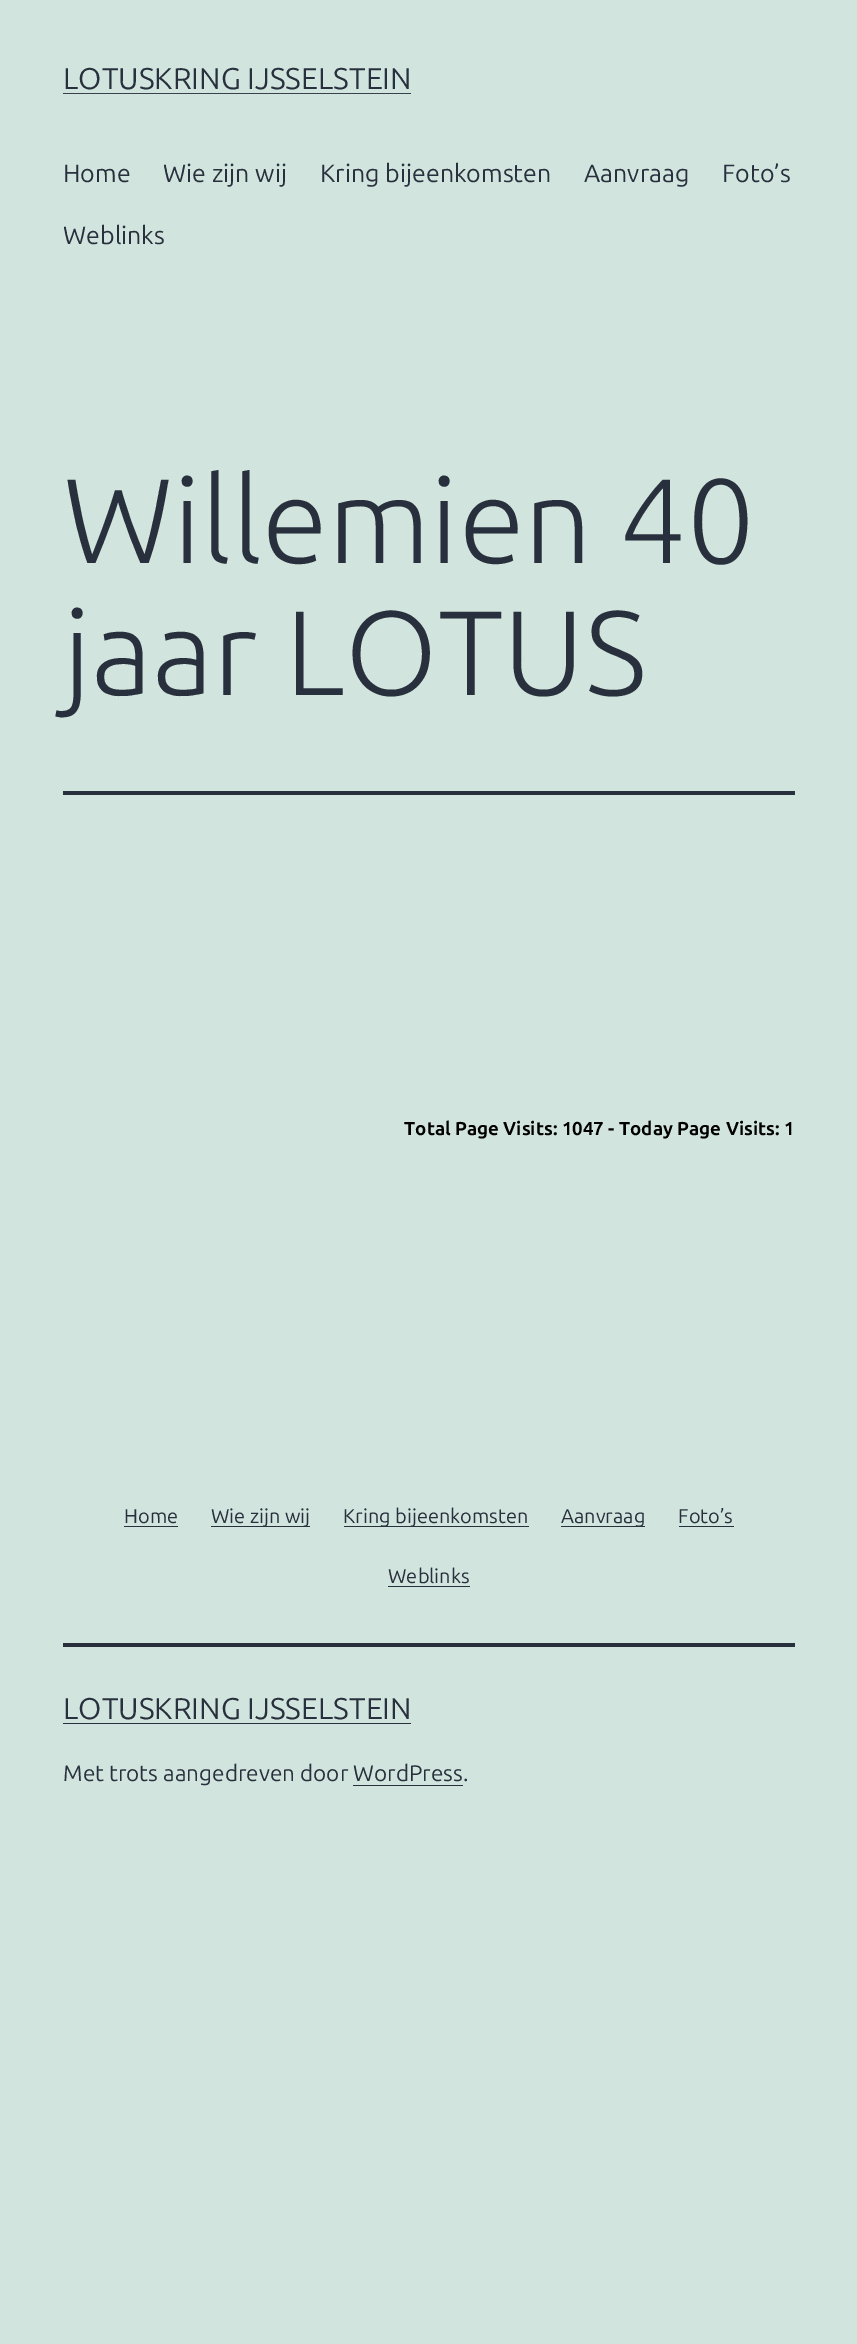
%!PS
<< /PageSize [857 2344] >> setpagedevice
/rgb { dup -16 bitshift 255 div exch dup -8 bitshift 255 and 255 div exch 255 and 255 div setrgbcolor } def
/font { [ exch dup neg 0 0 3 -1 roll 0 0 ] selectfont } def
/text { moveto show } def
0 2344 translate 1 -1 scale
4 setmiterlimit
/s1 { /Ubuntu-Regular 30 font 16#28303D rgb } def
/s2 { /Ubuntu-Regular 25 font 16#28303D rgb } def
/s3 { /Ubuntu-Light 120 font 16#28303D rgb } def
/s4 { /Ubuntu-Bold 18.75 font 16#000000 rgb } def
/s5 { /Ubuntu-Regular 20 font 16#28303D rgb } def
/s6 { /Ubuntu-Regular 22.5 font 16#28303D rgb } def
16#D1E4DD rgb
0 0 857 2344 rectfill
s1
(LOTUSKRING IJSSELSTEIN) 63 89 text
16#39414D rgb
63 93 348 1 rectfill
s2
(Home) 63 182 text
(Wie zijn wij) 163 182 text
(Kring bijeenkomsten) 320 182 text
(Aanvraag) 584 182 text
(Foto’s) 722 182 text
(Weblinks) 63 244 text
63 791 732 4 rectfill
s3
(Willemien 40) 63 563 text
(jaar LOTUS) 63 695 text
s4
(Total Page Visits: 1047 - Today Page Visits: 1) 404 1135 text
s5
(Home) 124 1523 text
124 1526 54 1 rectfill
211 1526 99 1 rectfill
(Wie zijn wij) 211 1523 text
344 1526 185 1 rectfill
(Kring bijeenkomsten) 343 1523 text
561 1526 84 1 rectfill
(Aanvraag) 561 1523 text
(Foto’s) 678 1523 text
679 1526 55 1 rectfill
(Weblinks) 388 1583 text
388 1586 82 1 rectfill
63 1643 732 4 rectfill
s1
(LOTUSKRING IJSSELSTEIN) 63 1719 text
63 1723 348 1 rectfill
s6
(Met trots aangedreven door WordPress.) 63 1781 text
353 1785 110 1 rectfill
showpage
